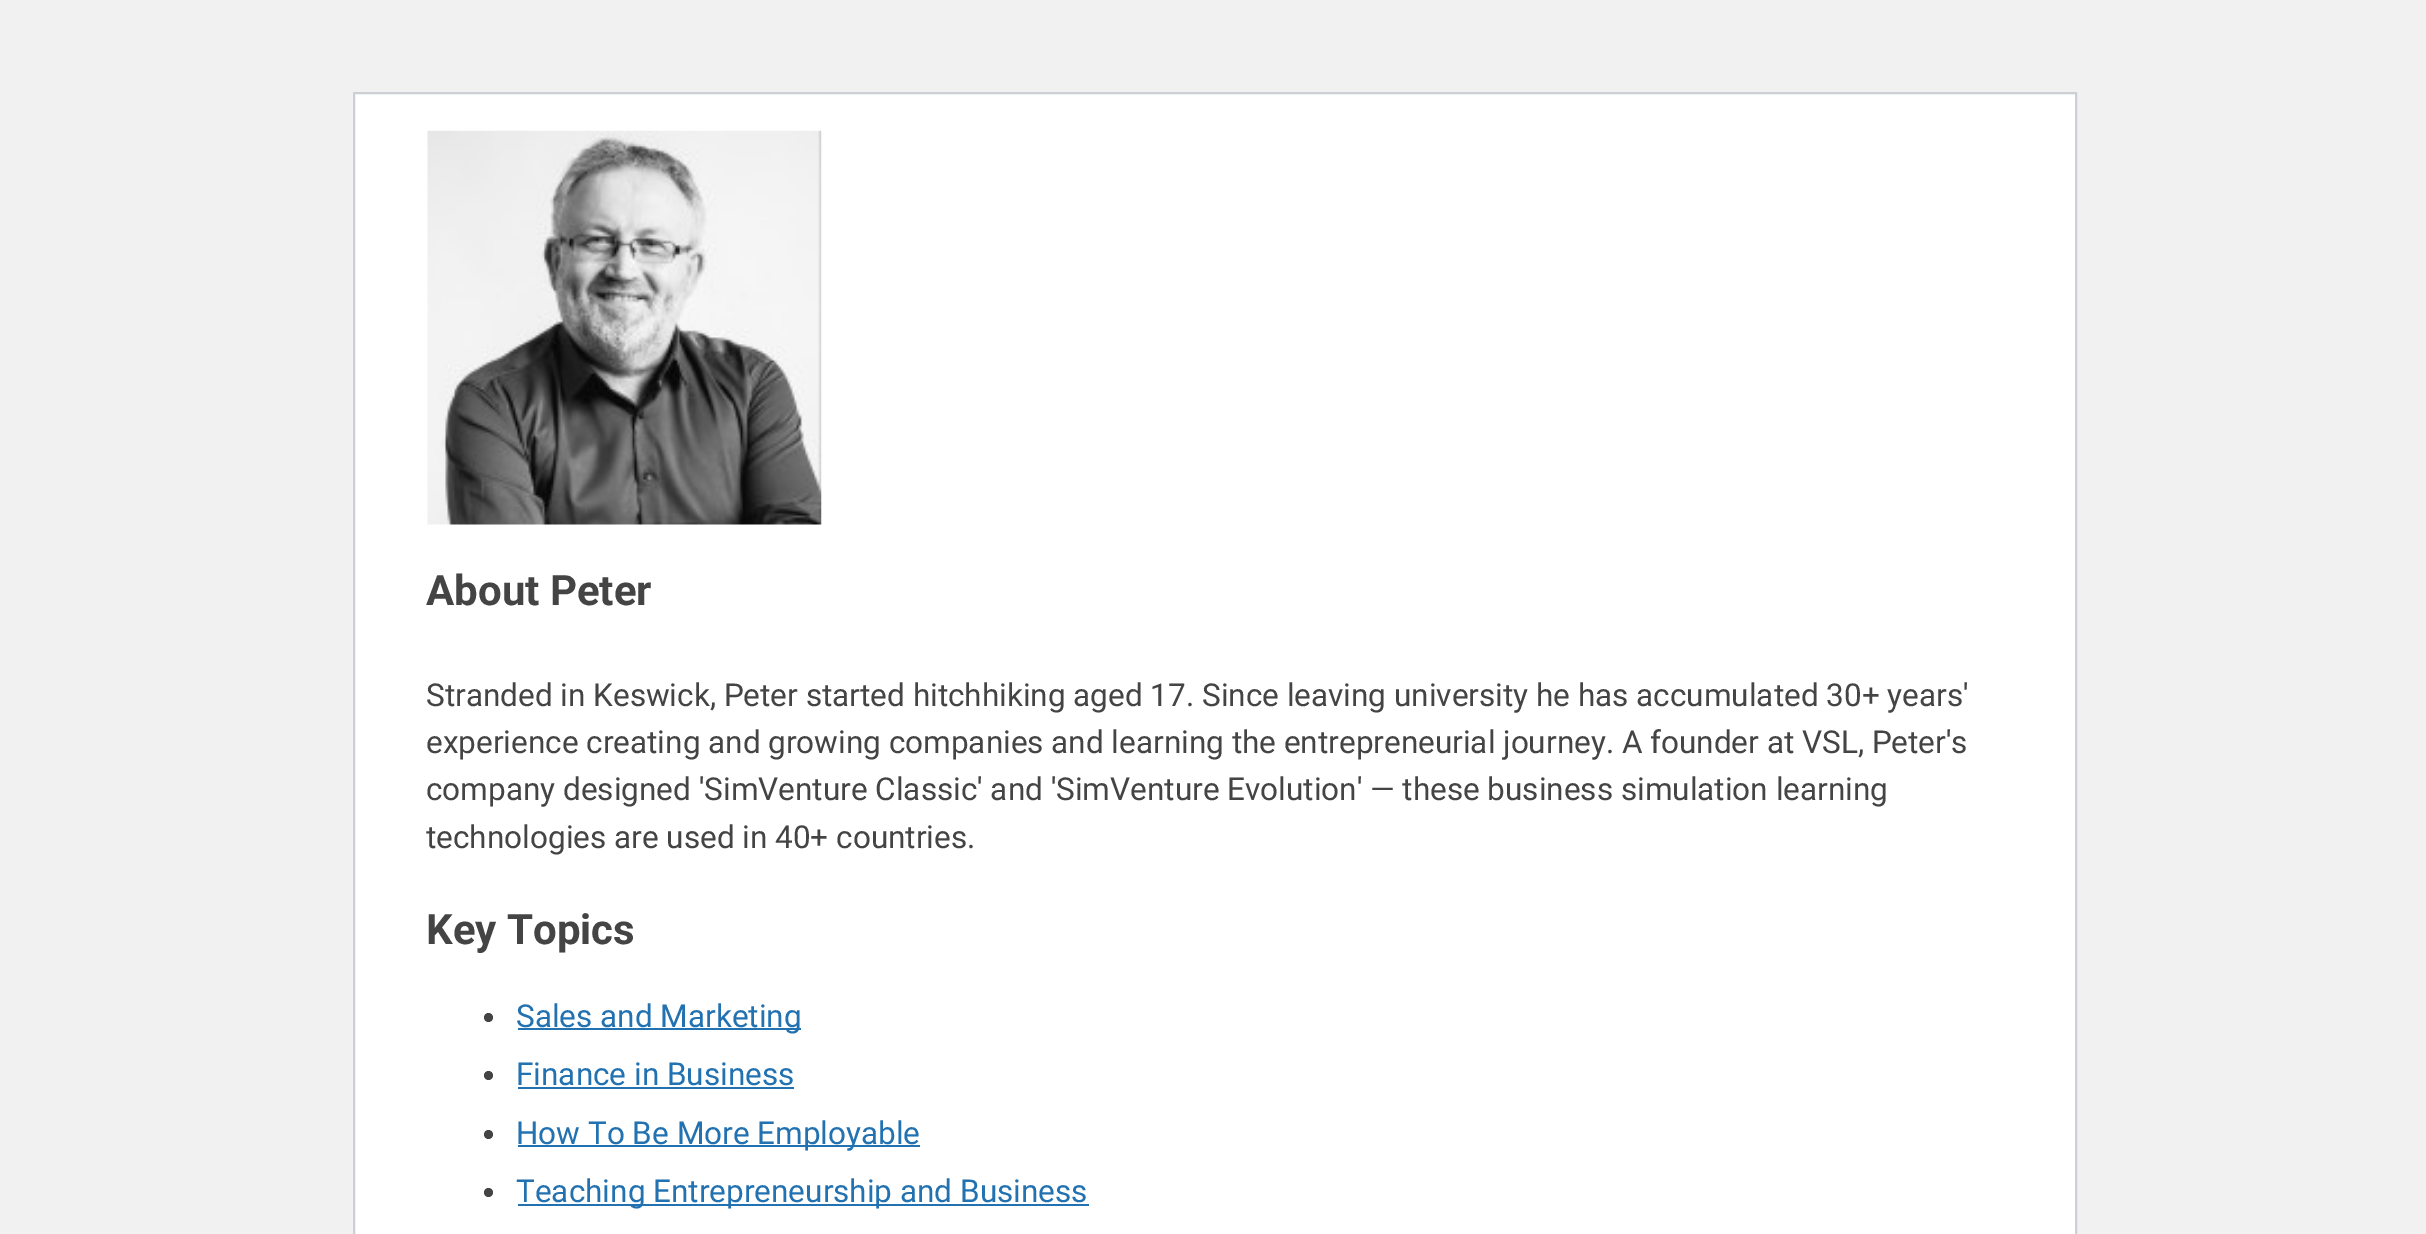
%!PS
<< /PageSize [2426 1234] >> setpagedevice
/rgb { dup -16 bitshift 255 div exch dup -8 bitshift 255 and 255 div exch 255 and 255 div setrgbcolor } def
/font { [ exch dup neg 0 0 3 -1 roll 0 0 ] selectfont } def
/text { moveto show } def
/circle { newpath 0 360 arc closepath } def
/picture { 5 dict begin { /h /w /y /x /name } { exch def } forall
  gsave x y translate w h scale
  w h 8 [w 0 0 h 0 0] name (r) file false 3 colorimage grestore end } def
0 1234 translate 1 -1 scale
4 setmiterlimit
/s1 { /Roboto-Bold 42 font 16#444444 rgb } def
/s2 { /Roboto-Regular 31.5 font 16#444444 rgb } def
/s3 { /Roboto-Regular 31.5 font 16#2271B1 rgb } def
16#F1F1F1 rgb
0 0 2426 1234 rectfill
16#FFFFFF rgb
354 93 moveto 2076 93 lineto 2076 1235 lineto 354 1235 lineto closepath gsave fill grestore
16#CCD0D4 rgb
2 setlinewidth
stroke
(pic1.raw) 427 130 395 395 picture
s1
(About Peter) 426 605 text
s2
(Stranded in Keswick, Peter started hitchhiking aged 17. Since leaving university he has accumulated 30+ years') 426 706 text
(experience creating and growing companies and learning the entrepreneurial journey. A founder at VSL, Peter's) 426 753 text
(company designed 'SimVenture Classic' and 'SimVenture Evolution' — these business simulation learning) 426 800 text
(technologies are used in 40+ countries.) 426 848 text
s1
(Key Topics) 426 944 text
488.5 1017.5 4.5 circle fill
16#2271B1 rgb
518 1028 283 2 rectfill
s3
(Sales and Marketing) 516 1027 text
16#444444 rgb
488.5 1075.5 4.5 circle fill
s3
(Finance in Business) 516 1085 text
518 1087 276 2 rectfill
16#444444 rgb
488.5 1134.5 4.5 circle fill
16#2271B1 rgb
518 1145 402 2 rectfill
(How To Be More Employable) 516 1144 text
16#444444 rgb
488.5 1192.5 4.5 circle fill
16#2271B1 rgb
518 1204 571 2 rectfill
(Teaching Entrepreneurship and Business) 516 1202 text
showpage
